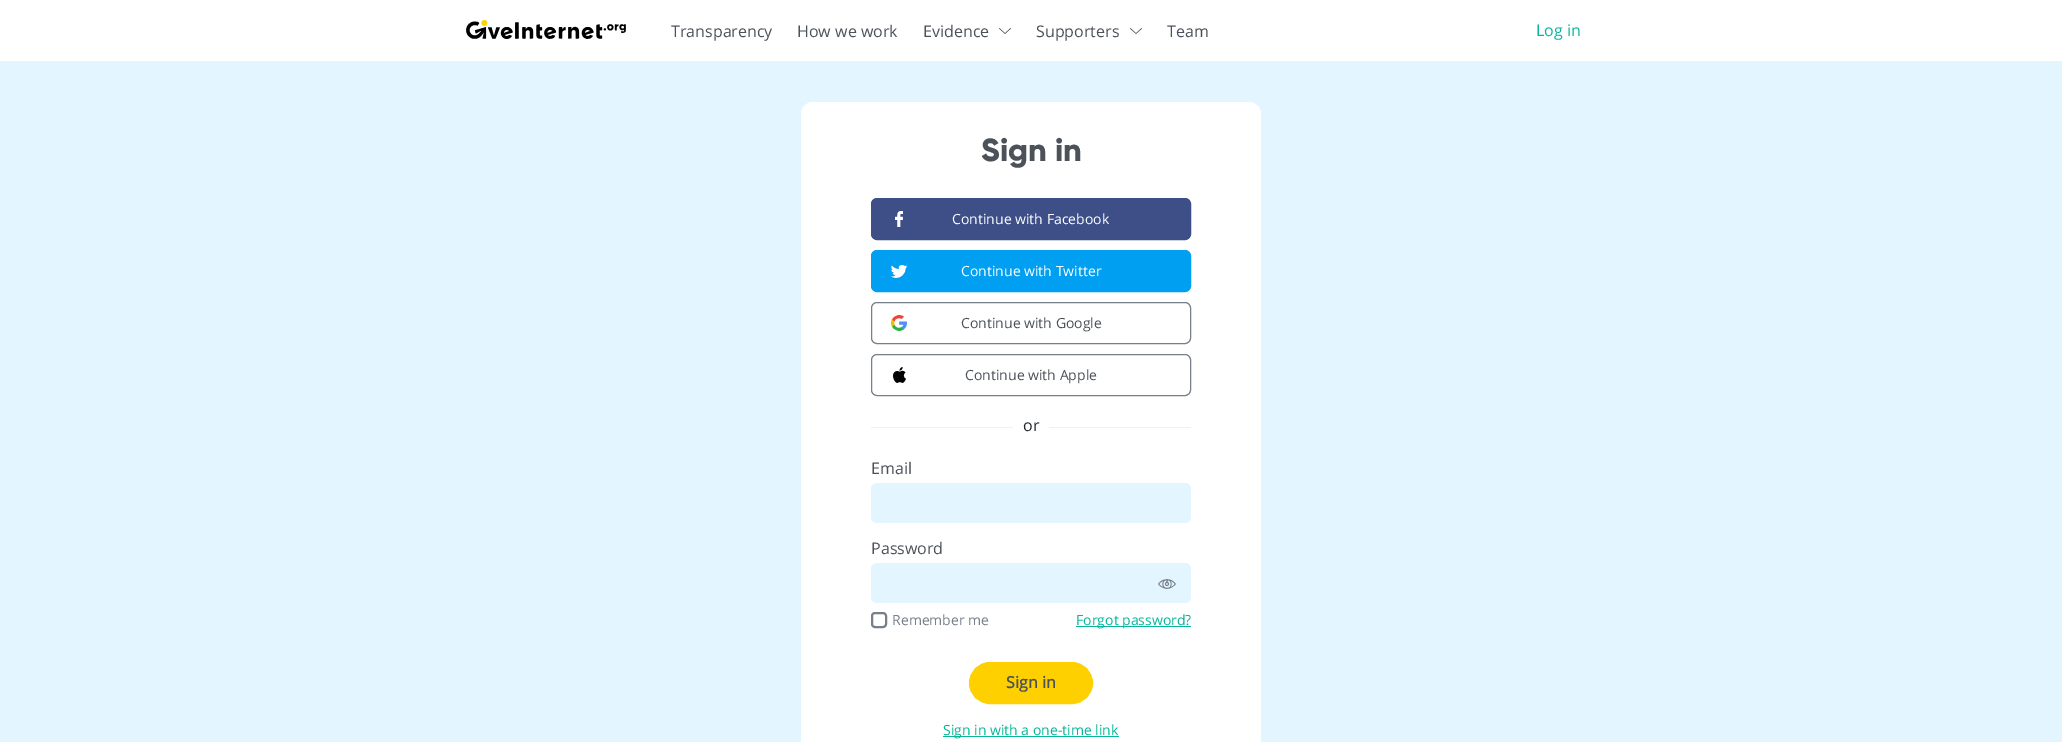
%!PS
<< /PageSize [2062 742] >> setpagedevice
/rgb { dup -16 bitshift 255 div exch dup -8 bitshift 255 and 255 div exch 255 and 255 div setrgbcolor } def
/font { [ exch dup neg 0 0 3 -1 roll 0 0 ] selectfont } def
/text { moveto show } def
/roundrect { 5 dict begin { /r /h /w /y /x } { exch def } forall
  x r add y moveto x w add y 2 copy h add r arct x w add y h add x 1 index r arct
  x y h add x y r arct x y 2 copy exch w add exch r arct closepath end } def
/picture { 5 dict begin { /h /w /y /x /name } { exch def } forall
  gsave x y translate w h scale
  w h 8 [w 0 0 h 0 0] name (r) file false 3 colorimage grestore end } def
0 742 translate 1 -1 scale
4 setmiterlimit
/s1 { /OpenSans-Regular 16 font 16#4C5259 rgb } def
/s2 { /OpenSans-Regular 16 font 16#08B79B rgb } def
/s3 { /Gilroy-ExtraBold 32 font 16#4C5259 rgb } def
/s4 { /OpenSans-Regular 14 font 16#FFFFFF rgb } def
/s5 { /OpenSans-Regular 14 font 16#4C5259 rgb } def
/s6 { /OpenSans-Regular 16 font 16#212529 rgb } def
/s7 { /OpenSans-Regular 14 font 16#767F8A rgb } def
/s8 { /OpenSans-Regular 14 font 16#08B79B rgb } def
/s9 { /OpenSans-Bold 16 font 16#4C5259 rgb } def
16#E3F5FF rgb
0 0 2062 742 rectfill
16#FFFFFF rgb
0 0 2062 61 rectfill
(pic1.raw) 466 20 160 19 picture
s1
(Transparency) 671 37 text
(How we work) 797 37 text
(Evidence) 923 37 text
(pic2.raw) 999 28 12 6 picture
(Supporters) 1036 37 text
(pic2.raw) 1130 28 12 6 picture
(Team) 1167 37 text
s2
(Log in) 1536 36 text
16#FFFFFF rgb
801 102 460 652 12 roundrect fill
s3
(Sign in) 981 161 text
16#3E4F88 rgb
871.5 198.5 319 41 5.5 roundrect gsave fill grestore
stroke
(pic3.raw) 895 211 8 16 picture
s4
(Continue with Facebook) 952 224 text
16#009FF2 rgb
871.5 250.5 319 41 5.5 roundrect gsave fill grestore
stroke
(pic4.raw) 891 265 17 13 picture
s4
(Continue with Twitter) 961 276 text
16#767F8A rgb
871.5 302.5 319 41 5.5 roundrect stroke
(pic5.raw) 891 315 16 16 picture
s5
(Continue with Google) 961 328 text
16#767F8A rgb
871.5 354.5 319 41 5.5 roundrect stroke
(pic6.raw) 893 367 13 16 picture
s5
(Continue with Apple) 965 380 text
16#E3F5FF rgb
871 427 320 1 rectfill
16#FFFFFF rgb
1013 427 36 1 rectfill
s6
(or) 1023 431 text
s1
(Email) 871 474 text
16#E3F5FF rgb
871 483 320 40 6 roundrect fill
s1
(Password) 871 554 text
16#E3F5FF rgb
871 563 320 40 6 roundrect fill
(pic7.raw) 1158 579 18 10 picture
16#767F8A rgb
2 setlinewidth
872 613 14 14 3 roundrect stroke
s7
(Remember me) 892 625 text
16#08B79B rgb
1076 626 115 1 rectfill
(Forgot password?) 1076 625 text
16#FFD000 rgb
970 663 122 40 20 roundrect gsave fill grestore
stroke
s9
(Sign in) 1006 688 text
16#08B79B rgb
943 736 176 1 rectfill
s8
(Sign in with a one-time link) 943 735 text
showpage
